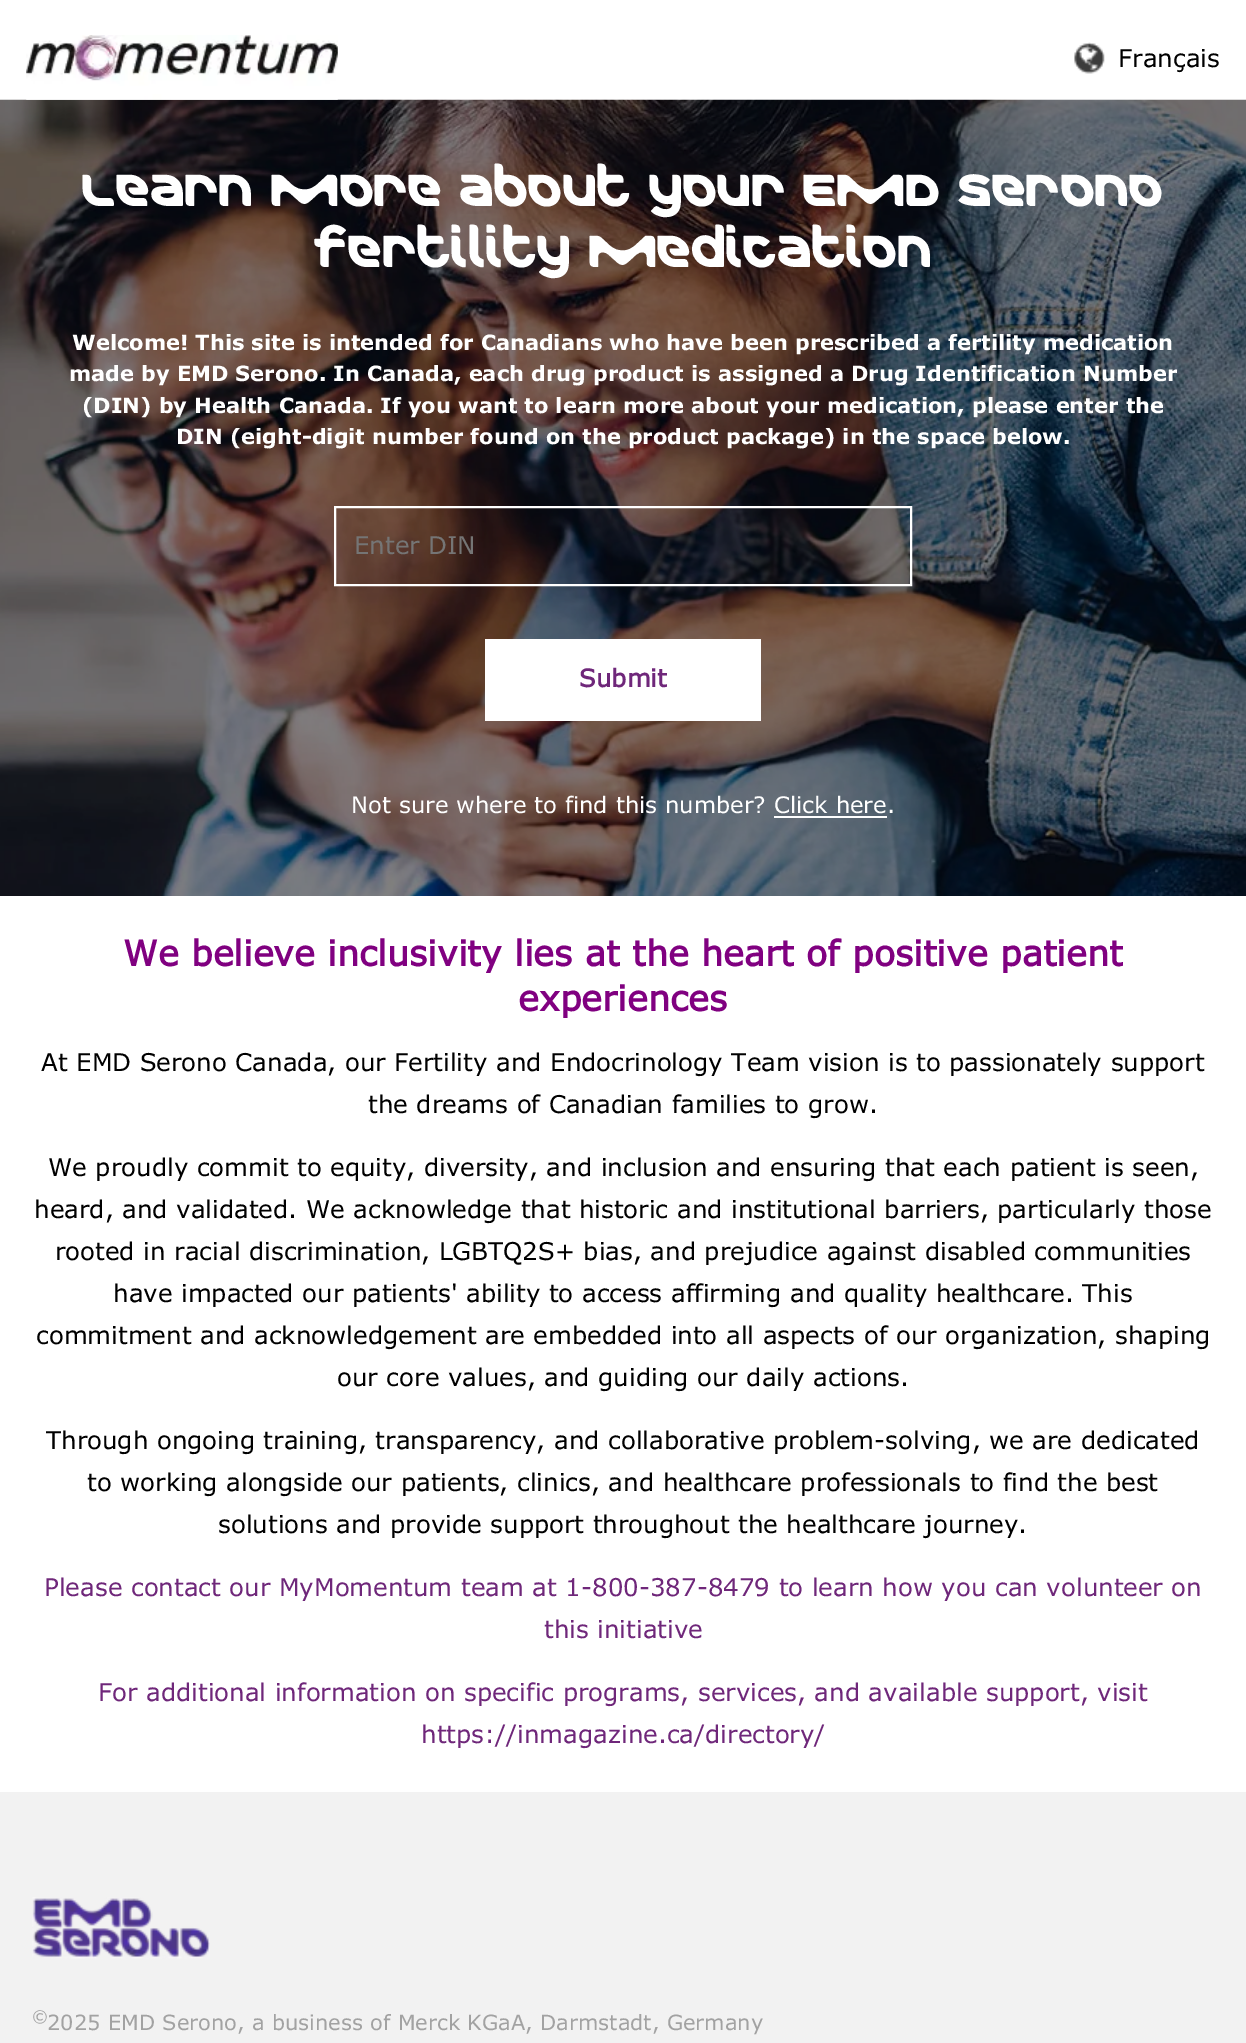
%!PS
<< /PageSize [1246 2043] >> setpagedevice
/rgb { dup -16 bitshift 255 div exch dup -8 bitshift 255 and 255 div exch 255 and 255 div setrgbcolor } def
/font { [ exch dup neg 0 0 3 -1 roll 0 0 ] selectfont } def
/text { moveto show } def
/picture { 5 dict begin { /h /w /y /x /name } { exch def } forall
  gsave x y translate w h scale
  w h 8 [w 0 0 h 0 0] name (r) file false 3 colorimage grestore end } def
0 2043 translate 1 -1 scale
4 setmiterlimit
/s1 { /Verdana-Regular 24.5 font 16#000000 rgb } def
/s2 { /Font-Regular 45.5 font 16#FFFFFF rgb } def
/s3 { /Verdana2-Bold 21 font 16#FFFFFF rgb } def
/s4 { /Verdana-Regular 24.5 font 16#757575 rgb } def
/s5 { /Verdana-Bold 24.5 font 16#6F277A rgb } def
/s6 { /Verdana-Regular 22.75 font 16#FFFFFF rgb } def
/s7 { /Verdana-Bold 35 font 16#800080 rgb } def
/s8 { /Verdana-Regular 24.5 font 16#6F277A rgb } def
/s9 { /Verdana-Regular 16 font 16#A2A2A2 rgb } def
/s10 { /Verdana-Regular 21 font 16#A2A2A2 rgb } def
16#FFFFFF rgb
0 0 1246 2043 rectfill
(pic3.raw) 0 99 1246 797 picture
(pic1.raw) 26 35 312 65 picture
(pic2.raw) 1074 42 31 32 picture
s1
(Français) 1118 67 text
s2
(Learn more about your EMD Serono) 82 206 text
(fertility medication) 314 267 text
s3
(Welcome! This site is intended for Canadians who have been prescribed a fertility medication) 72 350 text
(made by EMD Serono. In Canada, each drug product is assigned a Drug Identification Number) 69 381 text
(\(DIN\) by Health Canada. If you want to learn more about your medication, please enter the) 82 413 text
(DIN \(eight-digit number found on the product package\) in the space below.) 176 444 text
2 setlinewidth
335 507 576 78 rectstroke
s4
(Enter DIN) 354 554 text
16#FFFFFF rgb
485 639 276 82 rectfill
s5
(Submit) 579 687 text
s6
(Not sure where to find this number? Click here.) 351 813 text
774 816 113 2 rectfill
s7
(We believe inclusivity lies at the heart of positive patient) 123 966 text
(experiences) 518 1011 text
s1
(At EMD Serono Canada, our Fertility and Endocrinology Team vision is to passionately support) 41 1071 text
(the dreams of Canadian families to grow.) 368 1113 text
(We proudly commit to equity, diversity, and inclusion and ensuring that each patient is seen,) 48 1176 text
(heard, and validated. We acknowledge that historic and institutional barriers, particularly those) 34 1218 text
(rooted in racial discrimination, LGBTQ2S+ bias, and prejudice against disabled communities) 55 1260 text
(have impacted our patients' ability to access affirming and quality healthcare. This) 113 1302 text
(commitment and acknowledgement are embedded into all aspects of our organization, shaping) 36 1344 text
(our core values, and guiding our daily actions.) 337 1386 text
(Through ongoing training, transparency, and collaborative problem-solving, we are dedicated) 46 1449 text
(to working alongside our patients, clinics, and healthcare professionals to find the best) 87 1491 text
(solutions and provide support throughout the healthcare journey.) 218 1533 text
s8
(Please contact our MyMomentum team at 1-800-387-8479 to learn how you can volunteer on) 44 1596 text
(this initiative) 544 1638 text
(For additional information on specific programs, services, and available support, visit) 98 1701 text
(https://inmagazine.ca/directory/) 421 1743 text
16#F2F2F2 rgb
0 1792 1246 251 rectfill
(pic4.raw) 32 1897 178 62 picture
s9
(©) 32 2022 text
s10
(2025 EMD Serono, a business of Merck KGaA, Darmstadt, Germany) 47 2030 text
showpage
